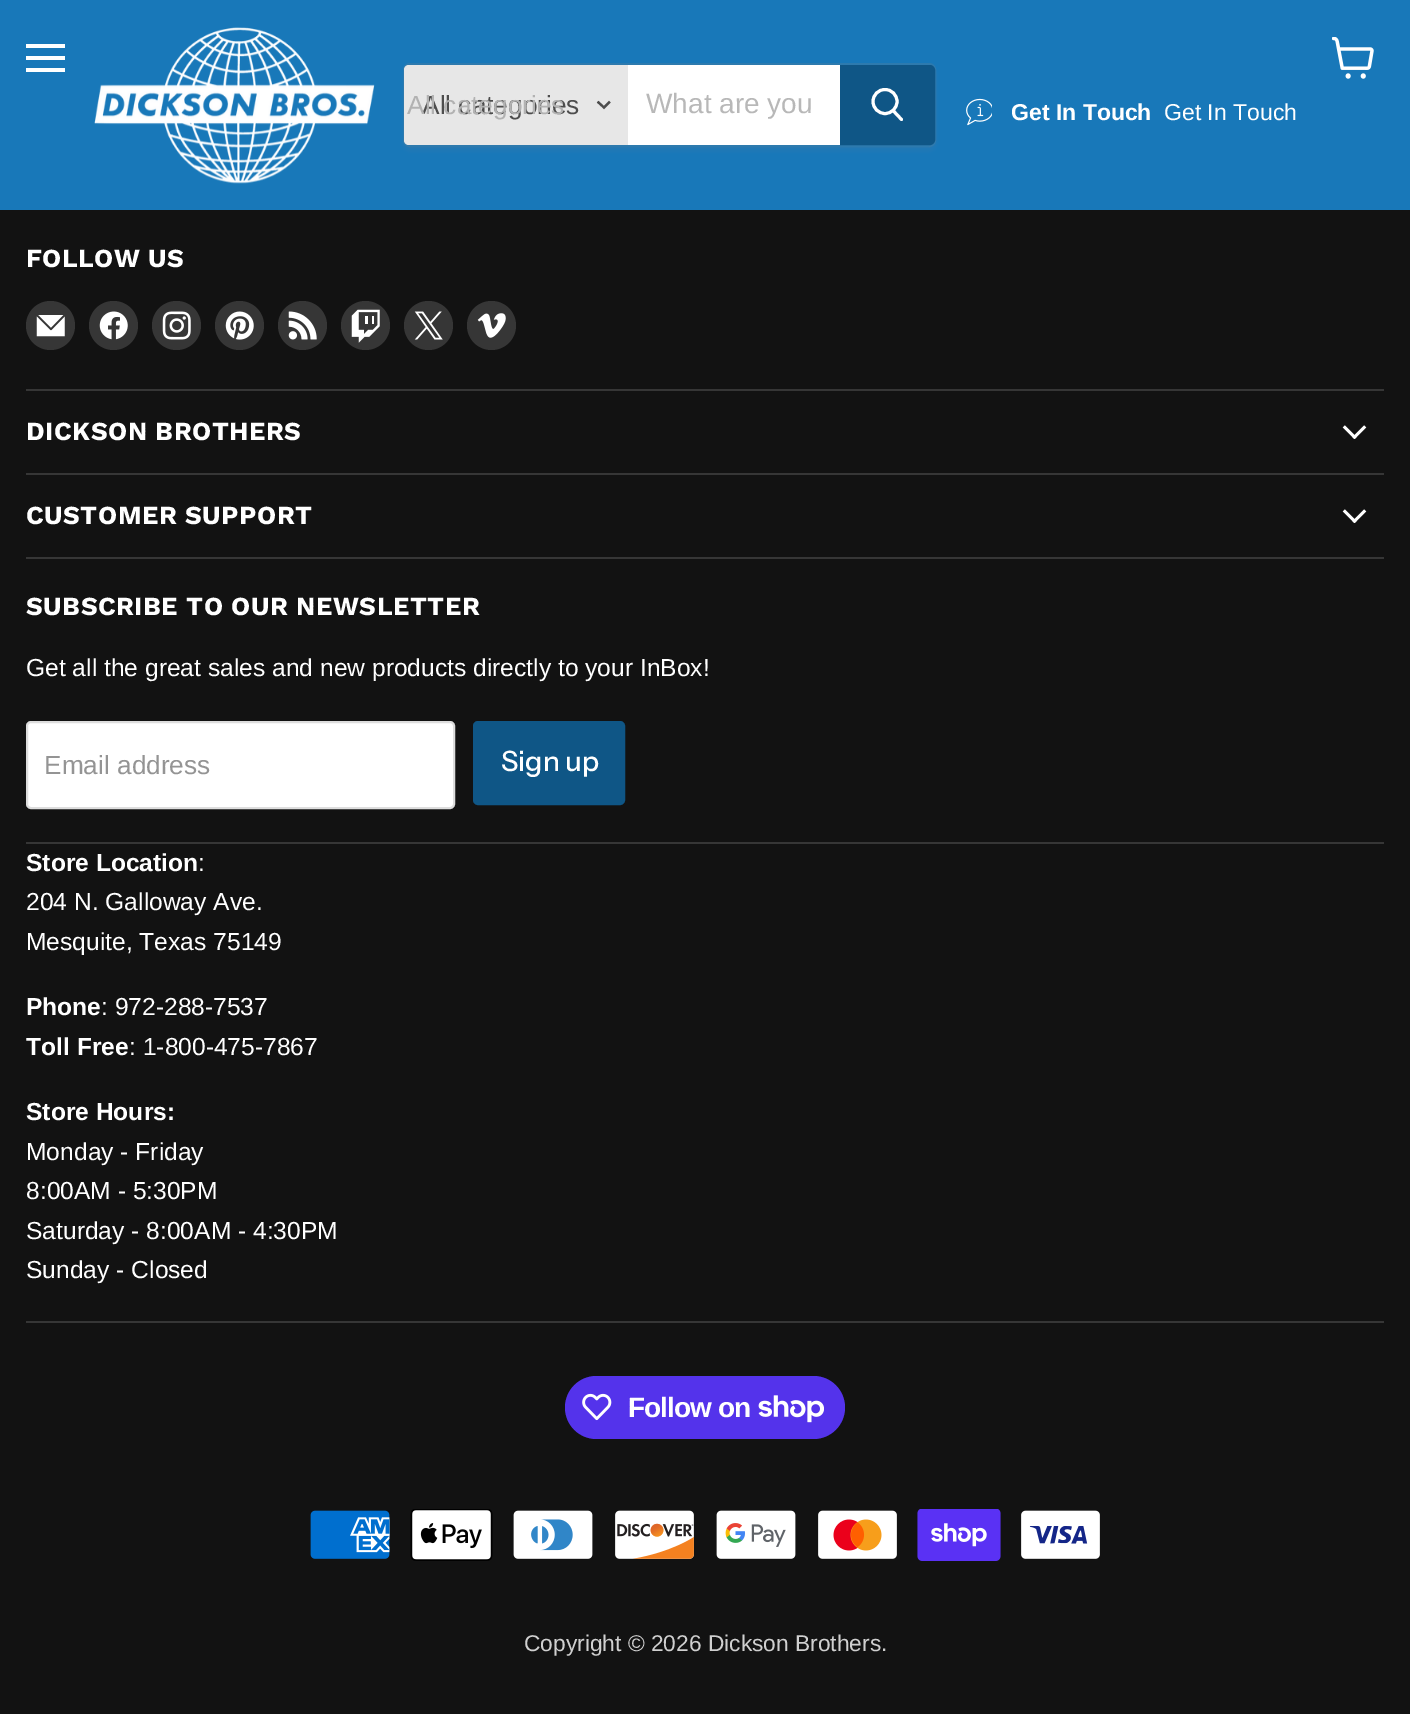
%!PS
<< /PageSize [1410 1714] /PageUsesTransparency true >> setpagedevice
/rgb { dup -16 bitshift 255 div exch dup -8 bitshift 255 and 255 div exch 255 and 255 div setrgbcolor } def
/font { [ exch dup neg 0 0 3 -1 roll 0 0 ] selectfont } def
/text { moveto show } def
/alpha { dup .setfillconstantalpha .setstrokeconstantalpha } def
/circle { newpath 0 360 arc closepath } def
/roundrect { 5 dict begin { /r /h /w /y /x } { exch def } forall
  x r add y moveto x w add y 2 copy h add r arct x w add y h add x 1 index r arct
  x y h add x y r arct x y 2 copy exch w add exch r arct closepath end } def
/shadow { 12 dict begin { /a /b /q /h /w /y /x } { exch def } forall gsave /was 0 def
  9 -2 -9 { dup b mul 4 div /e exch def 1 sub .425 mul 2.718 exch exp 1 add a .99 .min exch div /now exch def
    1 1 now sub 1 was sub div sub alpha /was now def
    w h .min e 2 mul add 0 gt { x e sub y e sub w e 2 mul add h e 2 mul add
      q e add b .6 mul add w h .min 2 div e add .min 0 .max roundrect fill } if } for grestore end } def
/picture { 5 dict begin { /h /w /y /x /name } { exch def } forall
  gsave x y translate w h scale
  w h 8 [w 0 0 h 0 0] name (r) file false 3 colorimage grestore end } def
0 .pushpdf14devicefilter
0 1714 translate 1 -1 scale
4 setmiterlimit
/s1 { /LiberationSans-Regular 26.25 font 16#4D4D4D rgb } def
/s2 { /LiberationSans-Regular 26.25 font 16#B2B2B2 rgb } def
/s3 { /LiberationSans-Regular 28 font 16#B8B8B8 rgb } def
/s4 { /LiberationSans-Bold 23 font 16#FFFFFF rgb } def
/s5 { /LiberationSans-Regular 23 font 16#FFFFFF rgb } def
/s6 { /LiberationSans-Regular 24.6 font 16#FFFFFF rgb } def
/s7 { /LiberationSans-Regular 26.25 font 16#949494 rgb } def
/s8 { /InstrumentSans-Medium 28 font 16#FFFFFF rgb } def
/s9 { /LiberationSans-Bold 24.6 font 16#FFFFFF rgb } def
/s10 { /LiberationSans-Regular 22.75 font 16#D0D0D0 rgb } def
16#121212 rgb
0 0 1410 1714 rectfill
16#1878B9 rgb
0 0 1410 210 rectfill
16#FFFFFF rgb
26 44 39 4 rectfill
26 56 39 4 rectfill
26 68 39 4 rectfill
(pic1.raw) 1332 37 42 42 picture
(pic2.raw) 94 27 281 157 picture
gsave
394 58 moveto 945 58 lineto 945 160 lineto 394 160 lineto closepath 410 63 moveto 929 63 lineto 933 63 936 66 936 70 curveto 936 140 lineto 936 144 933 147 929 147 curveto 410 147 lineto 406 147 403 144 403 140 curveto 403 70 lineto 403 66 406 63 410 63 curveto closepath eoclip newpath
16#808080 rgb
403 67 533 84 7 2.5 0.11 shadow
grestore
0.2 alpha
16#808080 rgb
2 setlinewidth
404 64 531 82 6 roundrect stroke
1 alpha
16#E7E7E7 rgb
409 65 moveto 628 65 lineto 628 145 lineto 409 145 lineto 406 145 404 143 404 140 curveto 404 70 lineto 404 67 406 65 409 65 curveto closepath fill
s1
(All categories) 422 114 text
s2
(All categories) 407 114 text
16#4D4D4D rgb
2.2 setlinewidth
2 setlinecap
604 107.5 moveto 609 102.5 lineto 604 107.5 moveto 598.5 102.5 lineto stroke
16#FFFFFF rgb
628 65 212 80 rectfill
s3
(What are you) 646 113 text
16#0F5686 rgb
841 66 moveto 930 66 lineto 932 66 934 68 934 70 curveto 934 140 lineto 934 142 932 144 930 144 curveto 841 144 lineto closepath gsave fill grestore
2 setlinewidth
0 setlinecap
stroke
16#FFFFFF rgb
3 setlinewidth
1 setlinecap
901.5 119.5 moveto 893.5 111 lineto stroke
0 setlinecap
885 101.5 12 circle stroke
(pic3.raw) 966 98 26 28 picture
s4
(Get In Touch) 1011 120 text
s5
(Get In Touch) 1164 120 text
16#363636 rgb
26 389 1358 2 rectfill
/WorkSans-Bold 26 font
16#FFFFFF rgb
26 267 moveto 0.5 0 (FOLLOW US) ashow
16#363636 rgb
50.5 325.5 24.5 circle fill
(pic4.raw) 36 315 29 22 picture
113.5 325.5 24.5 circle fill
(pic5.raw) 99 311 29 29 picture
176.5 325.5 24.5 circle fill
(pic6.raw) 162 311 29 29 picture
239.5 325.5 24.5 circle fill
(pic7.raw) 225 311 29 29 picture
302.5 325.5 24.5 circle fill
(pic8.raw) 288 311 29 29 picture
365.5 325.5 24.5 circle fill
(pic9.raw) 351 309 29 34 picture
428.5 325.5 24.5 circle fill
(pic10.raw) 414 311 29 29 picture
491.5 325.5 24.5 circle fill
(pic11.raw) 477 313 29 25 picture
26 473 1358 2 rectfill
16#FFFFFF rgb
26 440 moveto 0.5 0 (DICKSON BROTHERS) ashow
(pic12.raw) 1342 425 25 14 picture
16#363636 rgb
26 557 1358 2 rectfill
16#FFFFFF rgb
26 524 moveto 0.5 0 (CUSTOMER SUPPORT) ashow
(pic12.raw) 1342 509 25 14 picture
16#363636 rgb
26 842 1358 2 rectfill
16#FFFFFF rgb
26 615 moveto 0.5 0 (SUBSCRIBE TO OUR NEWSLETTER) ashow
s6
(Get all the great sales and new products) 26 676 text
(directly to your InBox!) 473 676 text
27 722 427 86 4 roundrect gsave fill grestore
16#DDDDDD rgb
2 setlinewidth
stroke
s7
(Email address) 44 774 text
16#0F5686 rgb
474 722 150 82 4 roundrect gsave fill grestore
stroke
s8
(Sign up) 501 771 text
16#363636 rgb
26 1321 1358 2 rectfill
s9
(Store Location) 26 871 text
s6
(:) 198 871 text
(204 N. Galloway Ave.) 26 910 text
(Mesquite, Texas 75149) 26 950 text
s9
(Phone) 26 1015 text
s6
(: 972-288-7537) 101 1015 text
s9
(Toll Free) 26 1055 text
s6
(: 1-800-475-7867) 129 1055 text
s9
(Store Hours:) 26 1120 text
s6
(Monday - Friday) 26 1160 text
(8:00AM - 5:30PM) 26 1199 text
(Saturday - 8:00AM - 4:30PM) 26 1239 text
(Sunday - Closed) 26 1278 text
16#5433EB rgb
565 1376 280 63 31.5 roundrect fill
(pic13.raw) 582 1393 30 28 picture
/LiberationSans-Bold 28 font
16#FFFFFF rgb
628 1417 moveto -0.9 0 (Follow on) ashow
(pic14.raw) 758 1395 66 28 picture
(pic15.raw) 310 1510 80 49 picture
(pic16.raw) 410 1509 83 52 picture
(pic17.raw) 513 1510 80 49 picture
(pic18.raw) 615 1510 79 49 picture
(pic19.raw) 716 1510 80 49 picture
(pic20.raw) 818 1510 79 49 picture
(pic21.raw) 917 1509 84 52 picture
(pic22.raw) 1021 1510 79 49 picture
s10
(Copyright © 2026 Dickson Brothers.) 524 1651 text
.poppdf14devicefilter showpage
